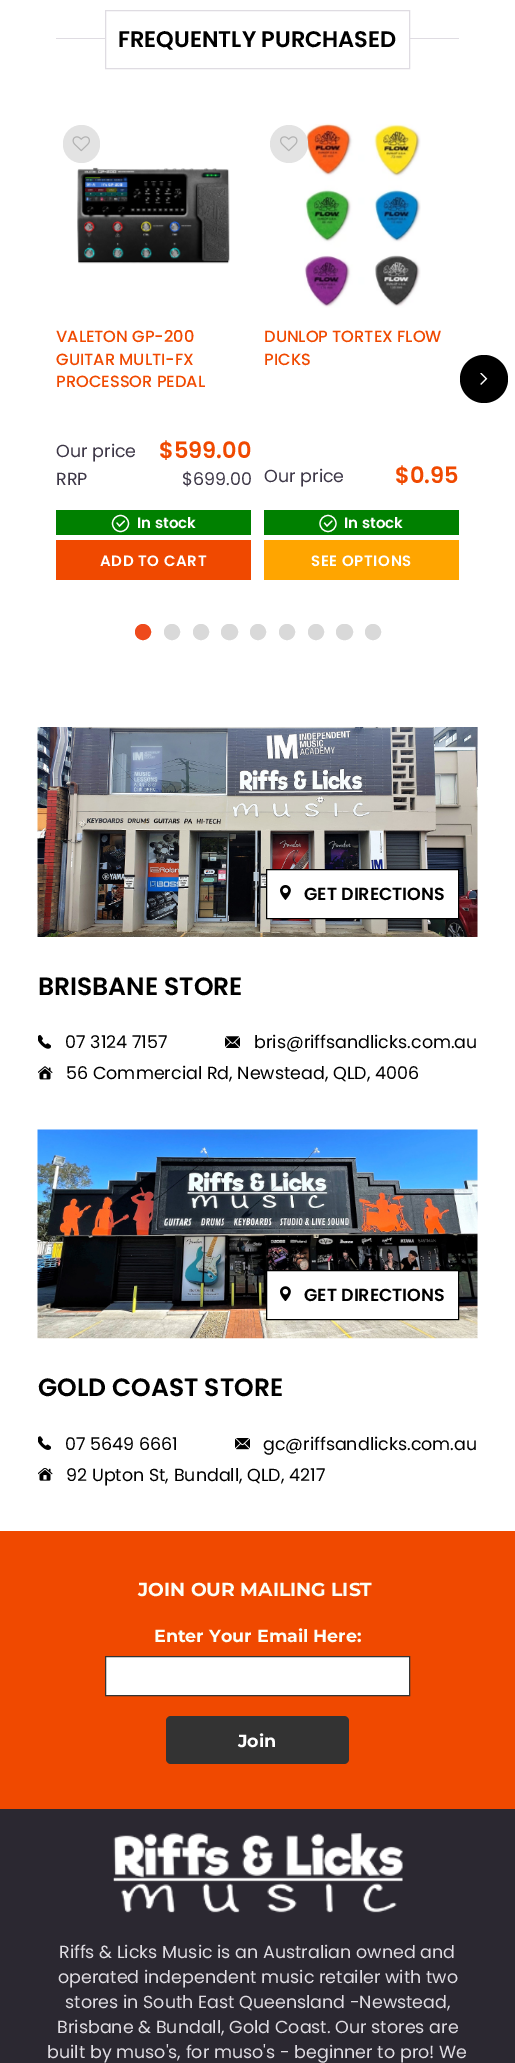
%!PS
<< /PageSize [515 2063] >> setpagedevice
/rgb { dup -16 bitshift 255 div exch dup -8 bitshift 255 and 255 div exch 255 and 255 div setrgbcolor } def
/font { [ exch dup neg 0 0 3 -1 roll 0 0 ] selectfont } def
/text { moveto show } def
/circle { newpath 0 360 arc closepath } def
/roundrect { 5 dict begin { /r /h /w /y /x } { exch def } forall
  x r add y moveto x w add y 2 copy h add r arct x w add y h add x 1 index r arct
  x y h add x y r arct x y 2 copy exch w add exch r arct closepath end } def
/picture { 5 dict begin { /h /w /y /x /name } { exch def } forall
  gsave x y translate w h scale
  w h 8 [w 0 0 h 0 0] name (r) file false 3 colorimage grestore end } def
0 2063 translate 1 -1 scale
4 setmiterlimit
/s1 { /Poppins-SemiBold 22.5 font 16#000000 rgb } def
/s2 { /Poppins-Medium 16.25 font 16#F04900 rgb } def
/s3 { /Poppins-Regular 17.5 font 16#3D3747 rgb } def
/s4 { /Poppins-SemiBold 22.5 font 16#F04900 rgb } def
/s5 { /Poppins-SemiBold 15 font 16#FFFFFF rgb } def
/s6 { /Poppins-SemiBold 17.5 font 16#000000 rgb } def
/s7 { /Poppins-SemiBold 25 font 16#000000 rgb } def
/s8 { /Poppins-Regular 17.5 font 16#000000 rgb } def
/s9 { /Montserrat-Bold 18.75 font 16#FCFFF6 rgb } def
/s10 { /Montserrat-Bold 17.5 font 16#FCFFF6 rgb } def
/s11 { /Montserrat-Bold 17.5 font 16#FFFFFF rgb } def
/s12 { /Poppins-Regular 17.5 font 16#DFDCE2 rgb } def
16#FFFFFF rgb
0 0 515 2063 rectfill
16#DFDCE2 rgb
56 38 403 1 rectfill
16#FFFFFF rgb
106 38 303 1 rectfill
16#DFDCE2 rgb
105.5 10.5 304 58 rectstroke
s1
(FREQUENTLY PURCHASED) 118 47 text
16#E3E3E3 rgb
63 125 37 38 18.5 roundrect fill
(pic1.raw) 72 136 18 16 picture
(pic2.raw) 77 167 153 97 picture
s2
(VALETON GP-200) 56 342 text
(GUITAR MULTI-FX) 56 365 text
(PROCESSOR PEDAL) 56 387 text
s3
(Our price) 56 457 text
s4
($599.00) 159 458 text
s3
(RRP) 56 485 text
($699.00) 182 485 text
16#008000 rgb
56 510 195 25 rectfill
16#FFFFFF rgb
1.2 setlinewidth
120.5 523.5 8 circle stroke
1 setlinecap
117 523 moveto 119.5 526 lineto 124.5 521 lineto stroke
s5
(In stock) 137 528 text
16#F04900 rgb
56 540 195 40 rectfill
16#FFFFFF rgb
100 566 moveto 0.6 0 (ADD TO CART) ashow
(pic4.raw) 304 123 117 185 picture
16#E3E3E3 rgb
289 144 19 circle fill
(pic3.raw) 280 136 18 16 picture
s2
(DUNLOP TORTEX FLOW) 264 342 text
(PICKS) 264 365 text
s3
(Our price) 264 482 text
s4
($0.95) 395 483 text
16#008000 rgb
264 510 195 25 rectfill
16#FFFFFF rgb
0 setlinecap
328 523.5 8 circle stroke
1 setlinecap
324.5 523 moveto 327 526 lineto 332 521 lineto stroke
s5
(In stock) 344 528 text
16#FFA500 rgb
264 540 195 40 rectfill
16#FFFFFF rgb
311 566 moveto 0.6 0 (SEE OPTIONS) ashow
16#EE4A1C rgb
143 632 7.5 circle gsave fill grestore
1 setlinewidth
0 setlinecap
stroke
16#D9D9D9 rgb
172 632 7.5 circle gsave fill grestore
stroke
201 632 7.5 circle gsave fill grestore
stroke
221.5 624.5 16 15 7.5 roundrect gsave fill grestore
stroke
258 632 7.5 circle gsave fill grestore
stroke
287 632 7.5 circle gsave fill grestore
stroke
316 632 7.5 circle gsave fill grestore
stroke
336.5 624.5 16 15 7.5 roundrect gsave fill grestore
stroke
373 632 7.5 circle gsave fill grestore
stroke
16#000000 rgb
484 379 24 circle fill
(pic5.raw) 480 373 8 12 picture
(pic6.raw) 37 727 441 210 picture
16#FFFFFF rgb
266.5 869.5 moveto 458.5 869.5 lineto 458.5 918.5 lineto 266.5 918.5 lineto closepath gsave fill grestore
16#000000 rgb
stroke
(pic7.raw) 280 885 11 15 picture
s6
(GET DIRECTIONS) 304 900 text
s7
(BRISBANE STORE) 38 995 text
(pic8.raw) 38 1035 13 14 picture
s8
(07 3124 7157) 65 1048 text
(pic9.raw) 225 1036 15 12 picture
(bris@riffsandlicks.com.au) 254 1048 text
(pic10.raw) 38 1066 15 14 picture
(56 Commercial Rd, Newstead, QLD, 4006) 66 1079 text
(pic11.raw) 37 1129 441 210 picture
16#FFFFFF rgb
266.5 1270.5 moveto 458.5 1270.5 lineto 458.5 1319.5 lineto 266.5 1319.5 lineto closepath gsave fill grestore
16#000000 rgb
stroke
(pic12.raw) 280 1286 11 15 picture
s6
(GET DIRECTIONS) 304 1301 text
s7
(GOLD COAST STORE) 38 1396 text
(pic13.raw) 38 1436 13 14 picture
s8
(07 5649 6661) 65 1450 text
(pic14.raw) 235 1438 15 12 picture
(gc@riffsandlicks.com.au) 263 1450 text
(pic15.raw) 38 1468 15 13 picture
(92 Upton St, Bundall, QLD, 4217) 66 1481 text
16#F04900 rgb
0 1531 515 278 rectfill
s9
(JOIN OUR MAILING LIST) 138 1596 text
s10
(Enter Your Email Here:) 154 1642 text
16#FFFFFF rgb
105.5 1656.5 moveto 409.5 1656.5 lineto 409.5 1695.5 lineto 105.5 1695.5 lineto closepath gsave fill grestore
16#333333 rgb
stroke
166 1716 183 48 5 roundrect fill
s11
(Join) 238 1747 text
16#2B2831 rgb
0 1809 515 254 rectfill
(pic16.raw) 113 1833 290 80 picture
s12
(Riffs & Licks Music is an Australian owned and) 59 1958 text
(operated independent music retailer with two) 58 1983 text
(stores in South East Queensland -Newstead,) 65 2008 text
(Brisbane & Bundall, Gold Coast. Our stores are) 57 2033 text
(built by muso's, for muso's - beginner to pro! We) 47 2058 text
showpage
